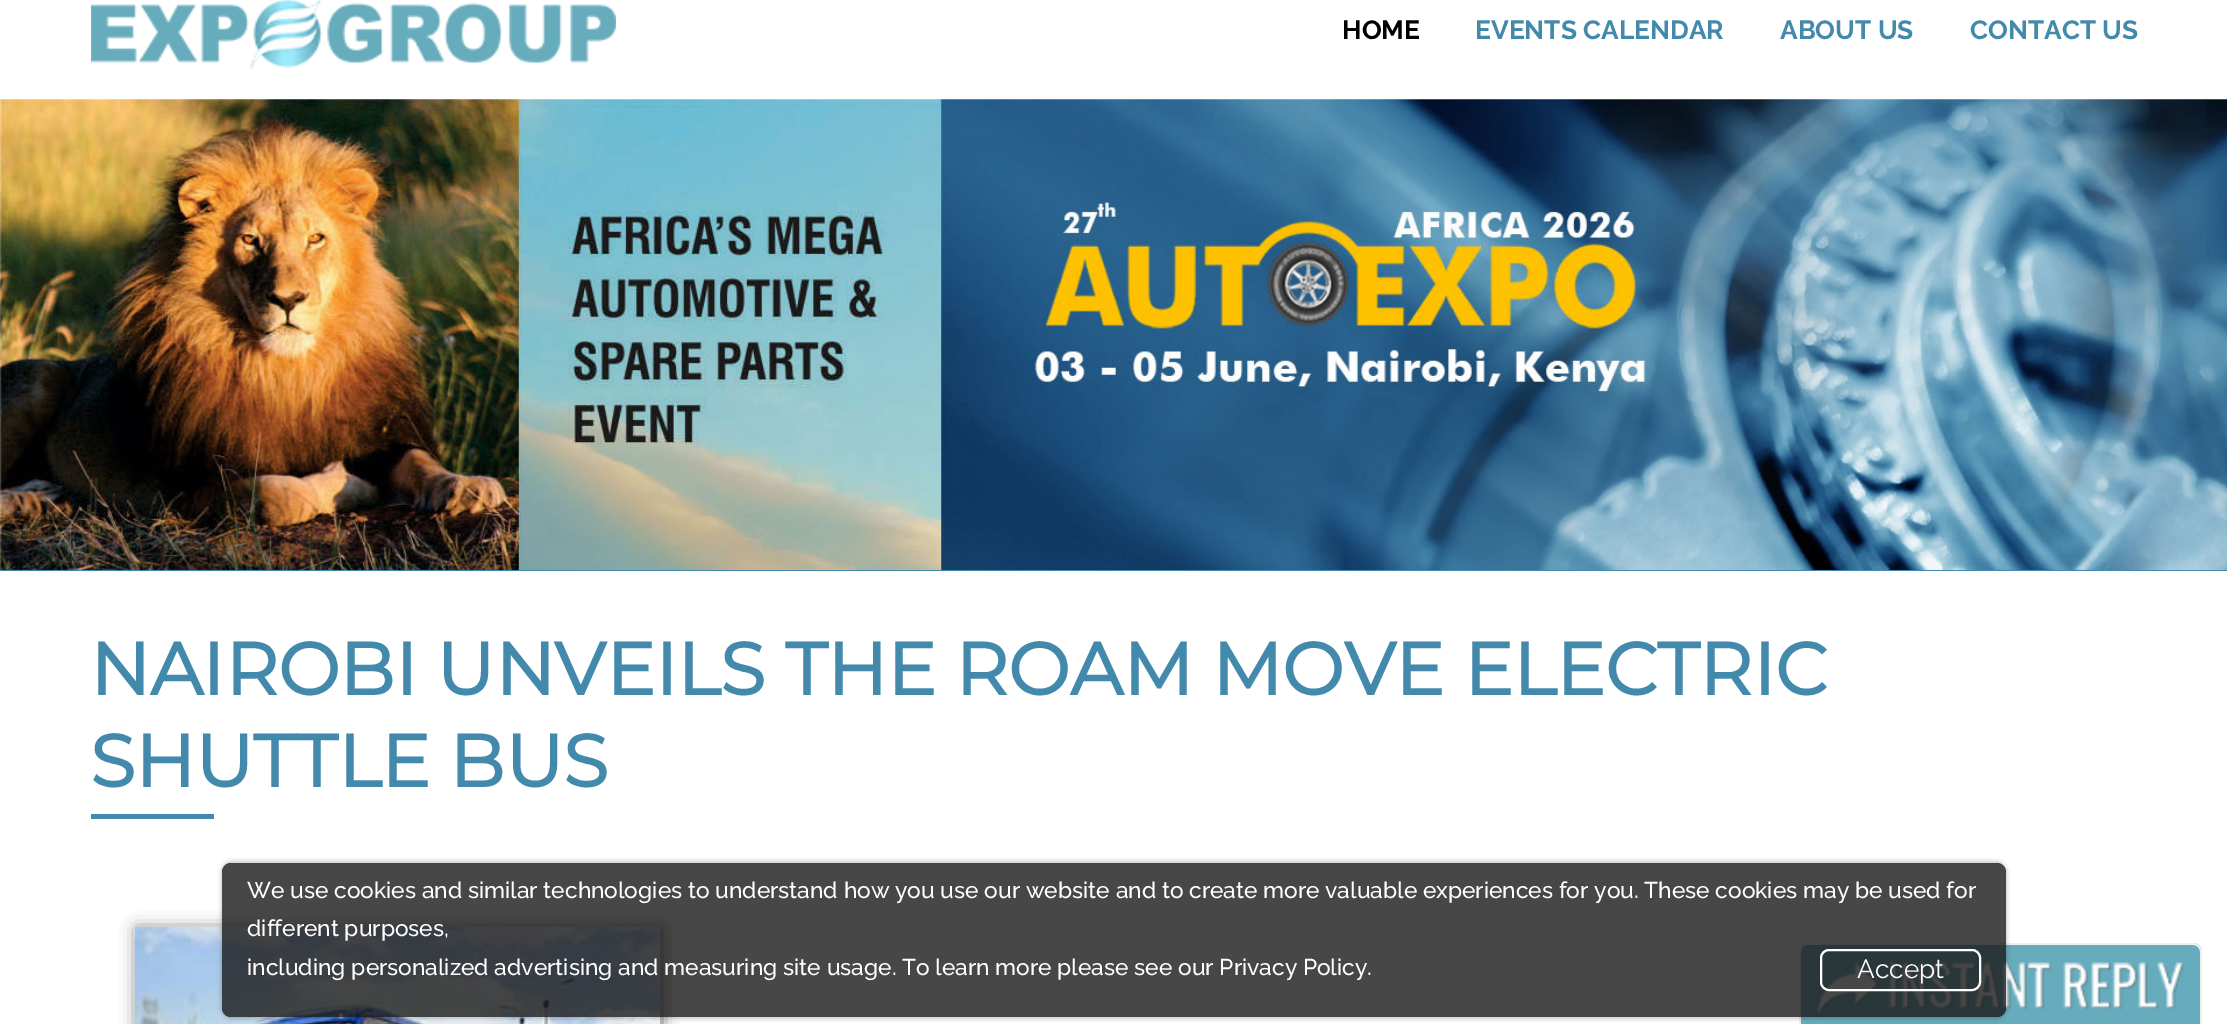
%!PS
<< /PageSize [2227 1024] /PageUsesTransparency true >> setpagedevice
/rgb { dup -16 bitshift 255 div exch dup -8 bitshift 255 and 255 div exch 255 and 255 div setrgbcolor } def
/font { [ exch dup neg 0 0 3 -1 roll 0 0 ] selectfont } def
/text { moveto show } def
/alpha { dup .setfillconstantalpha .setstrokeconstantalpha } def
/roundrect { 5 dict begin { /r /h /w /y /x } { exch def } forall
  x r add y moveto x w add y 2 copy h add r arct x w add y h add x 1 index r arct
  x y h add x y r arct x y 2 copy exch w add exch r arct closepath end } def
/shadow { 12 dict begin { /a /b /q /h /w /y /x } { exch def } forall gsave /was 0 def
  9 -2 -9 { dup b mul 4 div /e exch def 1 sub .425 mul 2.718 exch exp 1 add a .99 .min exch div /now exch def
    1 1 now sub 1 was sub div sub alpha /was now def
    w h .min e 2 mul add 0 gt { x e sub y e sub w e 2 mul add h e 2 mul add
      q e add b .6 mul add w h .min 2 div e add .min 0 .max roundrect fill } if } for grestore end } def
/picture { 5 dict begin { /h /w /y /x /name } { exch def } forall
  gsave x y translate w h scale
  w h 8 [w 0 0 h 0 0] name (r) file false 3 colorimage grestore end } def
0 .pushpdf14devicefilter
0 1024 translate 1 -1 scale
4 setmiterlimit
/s1 { /Raleway-Bold 26.25 font 16#000000 rgb } def
/s2 { /Raleway-Bold 26.25 font 16#4289AB rgb } def
/s3 { /Montserrat-Bold 73.5 font 16#4289AB rgb } def
/s4 { /Raleway-Medium 22.75 font 16#FFFFFF rgb } def
/s5 { /Raleway-Regular 26.25 font 16#FFFFFF rgb } def
16#FFFFFF rgb
0 0 2227 1024 rectfill
(pic1.raw) 91 0 525 69 picture
s1
(HOME) 1342 39 text
s2
(EVENTS CALENDAR) 1475 39 text
(ABOUT US) 1780 39 text
(CONTACT US) 1970 39 text
0 570 2227 1 rectfill
(pic2.raw) 0 99 2227 471 picture
s3
(NAIROBI UNVEILS THE ROAM MOVE ELECTRIC) 90 695 text
(SHUTTLE BUS) 90 787 text
91 814 123 5 rectfill
16#666666 rgb
137 929 525 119 0 8 1 shadow
(pic3.raw) 134 927 526 97 picture
16#67ACBC rgb
1808 943 moveto 2193 943 lineto 2198 943 2202 947 2202 952 curveto 2202 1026 lineto 1799 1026 lineto 1799 952 lineto 1799 947 1803 943 1808 943 curveto closepath fill
16#EFEFEF rgb
1808 943 moveto 2193 943 lineto 2198 943 2202 947 2202 952 curveto 2202 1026 lineto 1799 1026 lineto 1799 952 lineto 1799 947 1803 943 1808 943 curveto closepath 1808 945 moveto 2193 945 lineto 2197 945 2200 948 2200 952 curveto 2200 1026 lineto 1801 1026 lineto 1801 952 lineto 1801 948 1804 945 1808 945 curveto closepath eofill
(pic4.raw) 1817 962 367 56 picture
gsave
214 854 moveto 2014 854 lineto 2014 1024 lineto 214 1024 lineto closepath 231 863 moveto 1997 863 lineto 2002 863 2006 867 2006 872 curveto 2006 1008 lineto 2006 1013 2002 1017 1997 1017 curveto 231 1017 lineto 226 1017 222 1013 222 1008 curveto 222 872 lineto 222 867 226 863 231 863 curveto closepath eoclip newpath
16#000000 rgb
221 861 1786 158 11 2 0.2 shadow
grestore
0.8 alpha
16#191919 rgb
222 863 1784 154 9 roundrect fill
1 alpha
s4
(We use cookies and similar technologies to understand how you use our website and to create more valuable experiences for you. These cookies may be used for) 247 898 text
(different purposes,) 247 936 text
(including personalized advertising and measuring site usage. To learn more please see our Privacy Policy.) 247 975 text
2 setlinewidth
1821 950 159 40 8 roundrect stroke
s5
(Accept) 1857 978 text
.poppdf14devicefilter showpage
